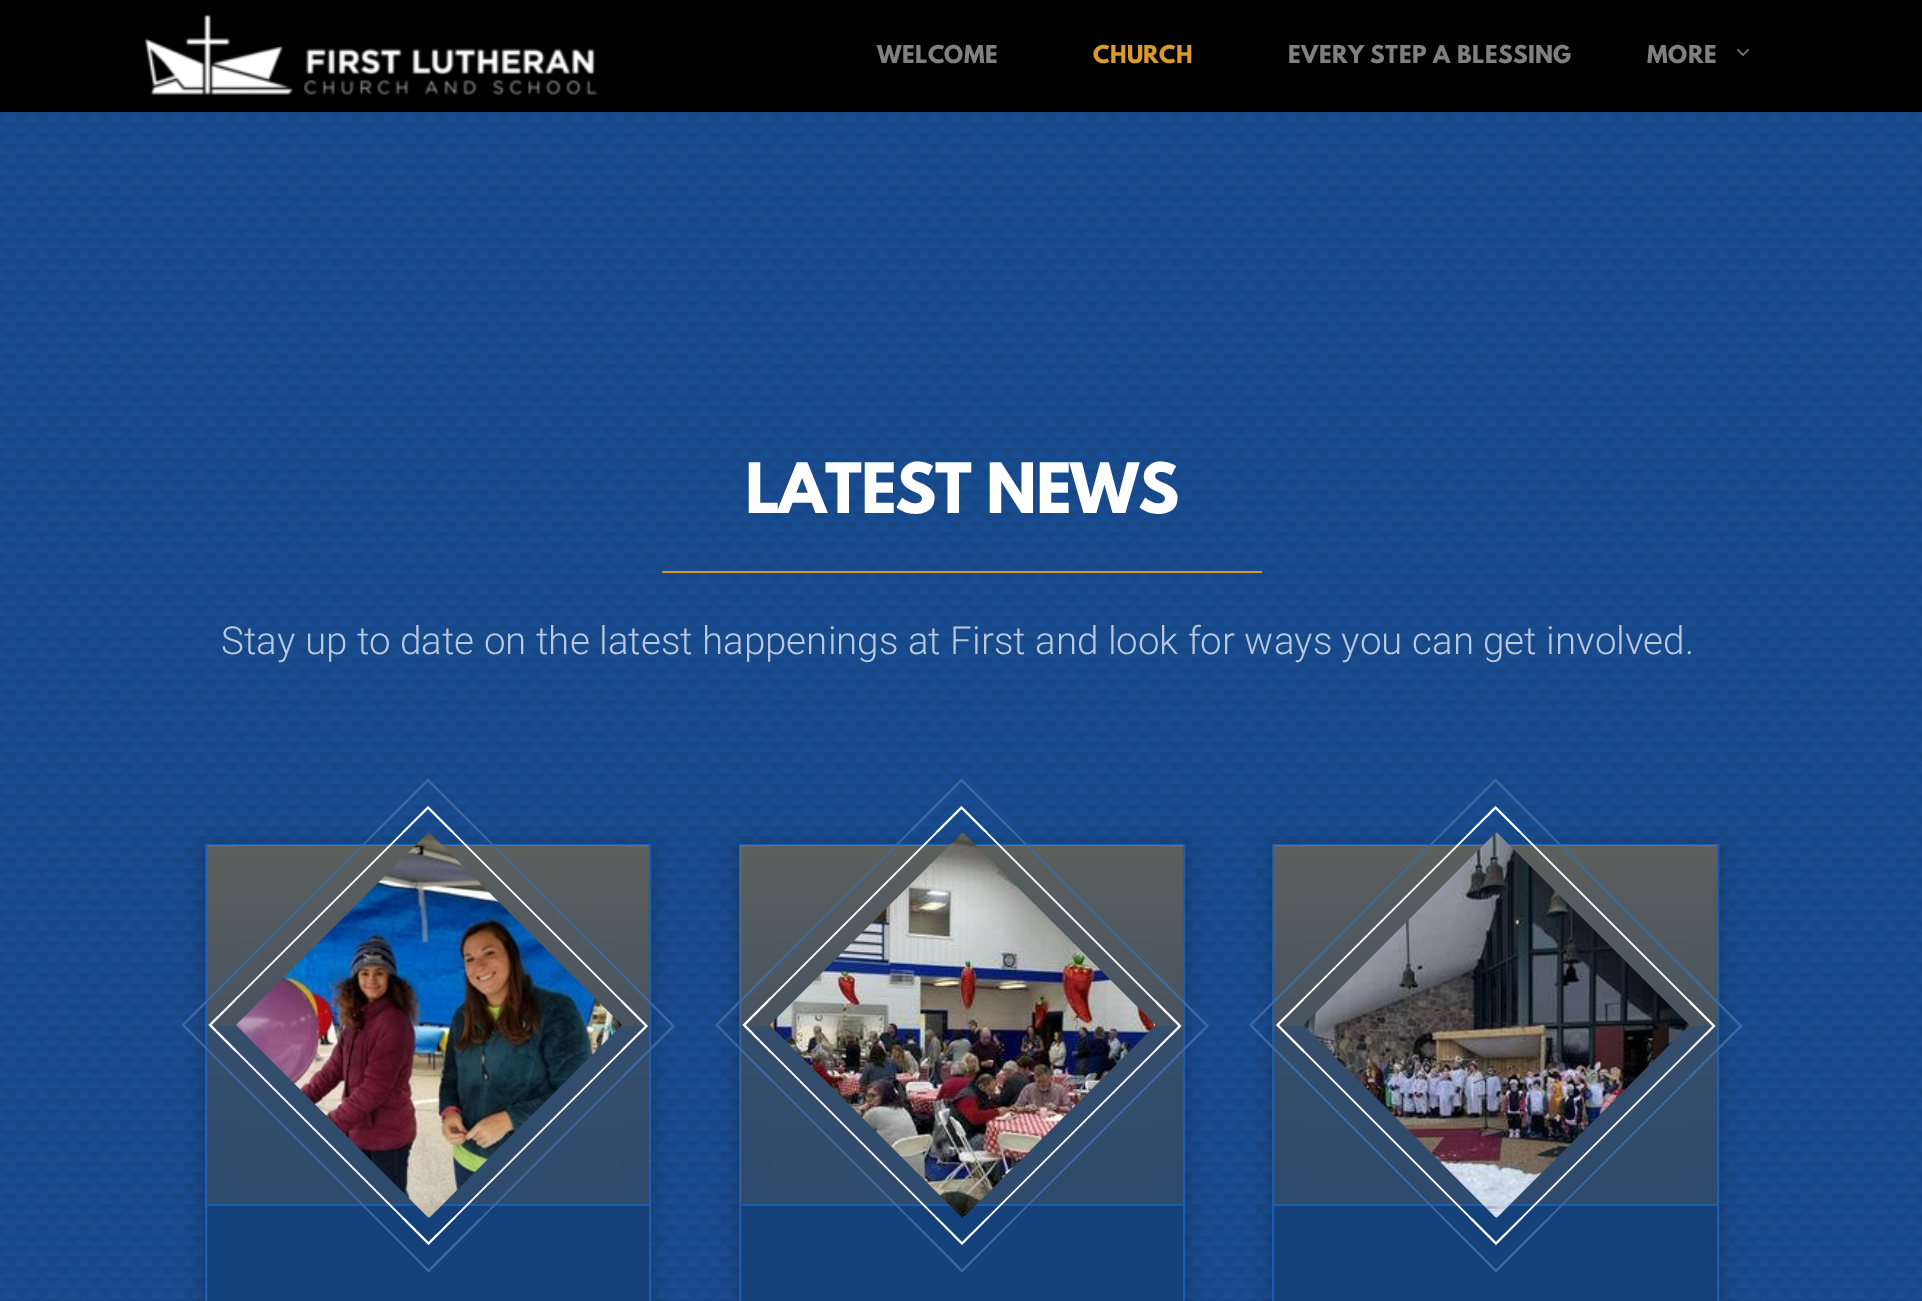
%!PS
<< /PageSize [1922 1301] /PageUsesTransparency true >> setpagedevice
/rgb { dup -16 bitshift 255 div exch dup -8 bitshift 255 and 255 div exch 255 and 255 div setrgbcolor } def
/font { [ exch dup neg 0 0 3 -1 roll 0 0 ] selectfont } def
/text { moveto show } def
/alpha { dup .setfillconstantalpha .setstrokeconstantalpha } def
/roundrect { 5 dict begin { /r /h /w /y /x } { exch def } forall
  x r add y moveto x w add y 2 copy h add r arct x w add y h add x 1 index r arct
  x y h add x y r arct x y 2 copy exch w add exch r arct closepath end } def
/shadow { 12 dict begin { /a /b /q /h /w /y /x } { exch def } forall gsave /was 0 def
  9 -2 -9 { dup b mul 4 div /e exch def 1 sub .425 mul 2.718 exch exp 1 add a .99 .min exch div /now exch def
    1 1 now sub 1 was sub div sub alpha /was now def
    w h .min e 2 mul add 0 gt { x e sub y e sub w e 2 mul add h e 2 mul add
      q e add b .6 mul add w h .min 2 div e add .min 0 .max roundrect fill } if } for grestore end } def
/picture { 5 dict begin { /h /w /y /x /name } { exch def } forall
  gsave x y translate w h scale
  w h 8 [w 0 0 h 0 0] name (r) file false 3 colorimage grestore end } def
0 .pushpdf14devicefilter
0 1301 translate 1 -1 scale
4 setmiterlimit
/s1 { /Roboto-Light 38.55 font 16#BACADE rgb } def
16#194D91 rgb
0 0 1922 1301 rectfill
16#000000 rgb
0 0 1922 112 rectfill
(pic1.raw) 144 14 453 81 picture
/LeagueSpartan-Bold 21.8 font
16#808080 rgb
877 63 moveto 0.4 0 (WELCOME) ashow
16#DA9929 rgb
1093 63 moveto 0.4 0 (CHURCH) ashow
16#808080 rgb
1288 63 moveto 0.4 0 (EVERY STEP A BLESSING) ashow
1647 63 moveto 0.4 0 (MORE) ashow
(pic2.raw) 1737 49 12 7 picture
(pic3.raw) 0 112 1922 1189 picture
16#D99529 rgb
662 571 600 2 rectfill
/LeagueSpartan-Bold 61.5 font
16#FFFFFF rgb
745 513 moveto -1.25 0 (LATEST NEWS) ashow
s1
(Stay up to date on the latest happenings at First and look for ways you can get involved.) 221 654 text
16#000000 rgb
205 847 446 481 0 9 0.25 shadow
16#15417B rgb
206 845 moveto 650 845 lineto 650 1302 lineto 206 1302 lineto closepath gsave fill grestore
16#1D5DB0 rgb
2 setlinewidth
stroke
0.2 alpha
gsave 207 845 moveto 649 845 lineto 649 1204 lineto 207 1204 lineto closepath clip newpath
<< /ShadingType 2 /ColorSpace /DeviceRGB /Coords [428 845 428 1204] /Extend [true true] /Function << /FunctionType 2 /Domain [0 1] /C0 [0.851 0.584 0.161] /C1 [0.569 0.427 0.2] /N 1 >> >> shfill grestore
1 alpha
207 1204 442 2 rectfill
0.2 alpha
gsave 207 845 moveto 649 845 lineto 649 1026 lineto 207 1026 lineto closepath clip newpath
<< /ShadingType 2 /ColorSpace /DeviceRGB /Coords [428 845 428 1026] /Extend [true true] /Function << /FunctionType 2 /Domain [0 1] /C0 [0.851 0.584 0.161] /C1 [0.569 0.427 0.2] /N 1 >> >> shfill grestore
1 alpha
16#FFFFFF rgb
1.8 setlinewidth
210 1025 moveto 428 807.5 lineto 646.5 1026 lineto 428.5 1243.5 lineto closepath stroke
16#3E6AA3 rgb
183 1025 moveto 428 780 lineto 673.5 1026 lineto 428.5 1271 lineto closepath stroke
(pic4.raw) 236 832 386 386 picture
16#000000 rgb
739 847 446 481 0 9 0.25 shadow
16#15417B rgb
740 845 moveto 1184 845 lineto 1184 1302 lineto 740 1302 lineto closepath gsave fill grestore
16#1D5DB0 rgb
2 setlinewidth
stroke
0.2 alpha
gsave 740 845 moveto 1183 845 lineto 1183 1204 lineto 740 1204 lineto closepath clip newpath
<< /ShadingType 2 /ColorSpace /DeviceRGB /Coords [962 845 962 1204] /Extend [true true] /Function << /FunctionType 2 /Domain [0 1] /C0 [0.851 0.584 0.161] /C1 [0.569 0.427 0.2] /N 1 >> >> shfill grestore
1 alpha
740 1204 443 2 rectfill
0.2 alpha
gsave 740 845 moveto 1183 845 lineto 1183 1026 lineto 740 1026 lineto closepath clip newpath
<< /ShadingType 2 /ColorSpace /DeviceRGB /Coords [962 845 962 1026] /Extend [true true] /Function << /FunctionType 2 /Domain [0 1] /C0 [0.851 0.584 0.161] /C1 [0.569 0.427 0.2] /N 1 >> >> shfill grestore
1 alpha
16#FFFFFF rgb
1.8 setlinewidth
744 1025 moveto 961.5 807.5 lineto 1180 1026 lineto 962 1243.5 lineto closepath stroke
16#3E6AA3 rgb
716.5 1025 moveto 961.5 780 lineto 1207.5 1026 lineto 962 1271 lineto closepath stroke
(pic5.raw) 770 832 386 386 picture
16#000000 rgb
1272 847 447 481 0 9 0.25 shadow
16#15417B rgb
1273 845 moveto 1718 845 lineto 1718 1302 lineto 1273 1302 lineto closepath gsave fill grestore
16#1D5DB0 rgb
2 setlinewidth
stroke
0.2 alpha
gsave 1274 845 moveto 1717 845 lineto 1717 1204 lineto 1274 1204 lineto closepath clip newpath
<< /ShadingType 2 /ColorSpace /DeviceRGB /Coords [1495 845 1495 1204] /Extend [true true] /Function << /FunctionType 2 /Domain [0 1] /C0 [0.851 0.584 0.161] /C1 [0.569 0.427 0.2] /N 1 >> >> shfill grestore
1 alpha
1274 1204 443 2 rectfill
0.2 alpha
gsave 1274 845 moveto 1717 845 lineto 1717 1026 lineto 1274 1026 lineto closepath clip newpath
<< /ShadingType 2 /ColorSpace /DeviceRGB /Coords [1495 845 1495 1026] /Extend [true true] /Function << /FunctionType 2 /Domain [0 1] /C0 [0.851 0.584 0.161] /C1 [0.569 0.427 0.2] /N 1 >> >> shfill grestore
1 alpha
16#FFFFFF rgb
1.8 setlinewidth
1277.5 1025 moveto 1495.5 807.5 lineto 1714 1026 lineto 1496 1243.5 lineto closepath stroke
16#3E6AA3 rgb
1250.5 1025 moveto 1495.5 780 lineto 1741 1026 lineto 1496 1271 lineto closepath stroke
(pic6.raw) 1304 832 385 386 picture
.poppdf14devicefilter showpage
